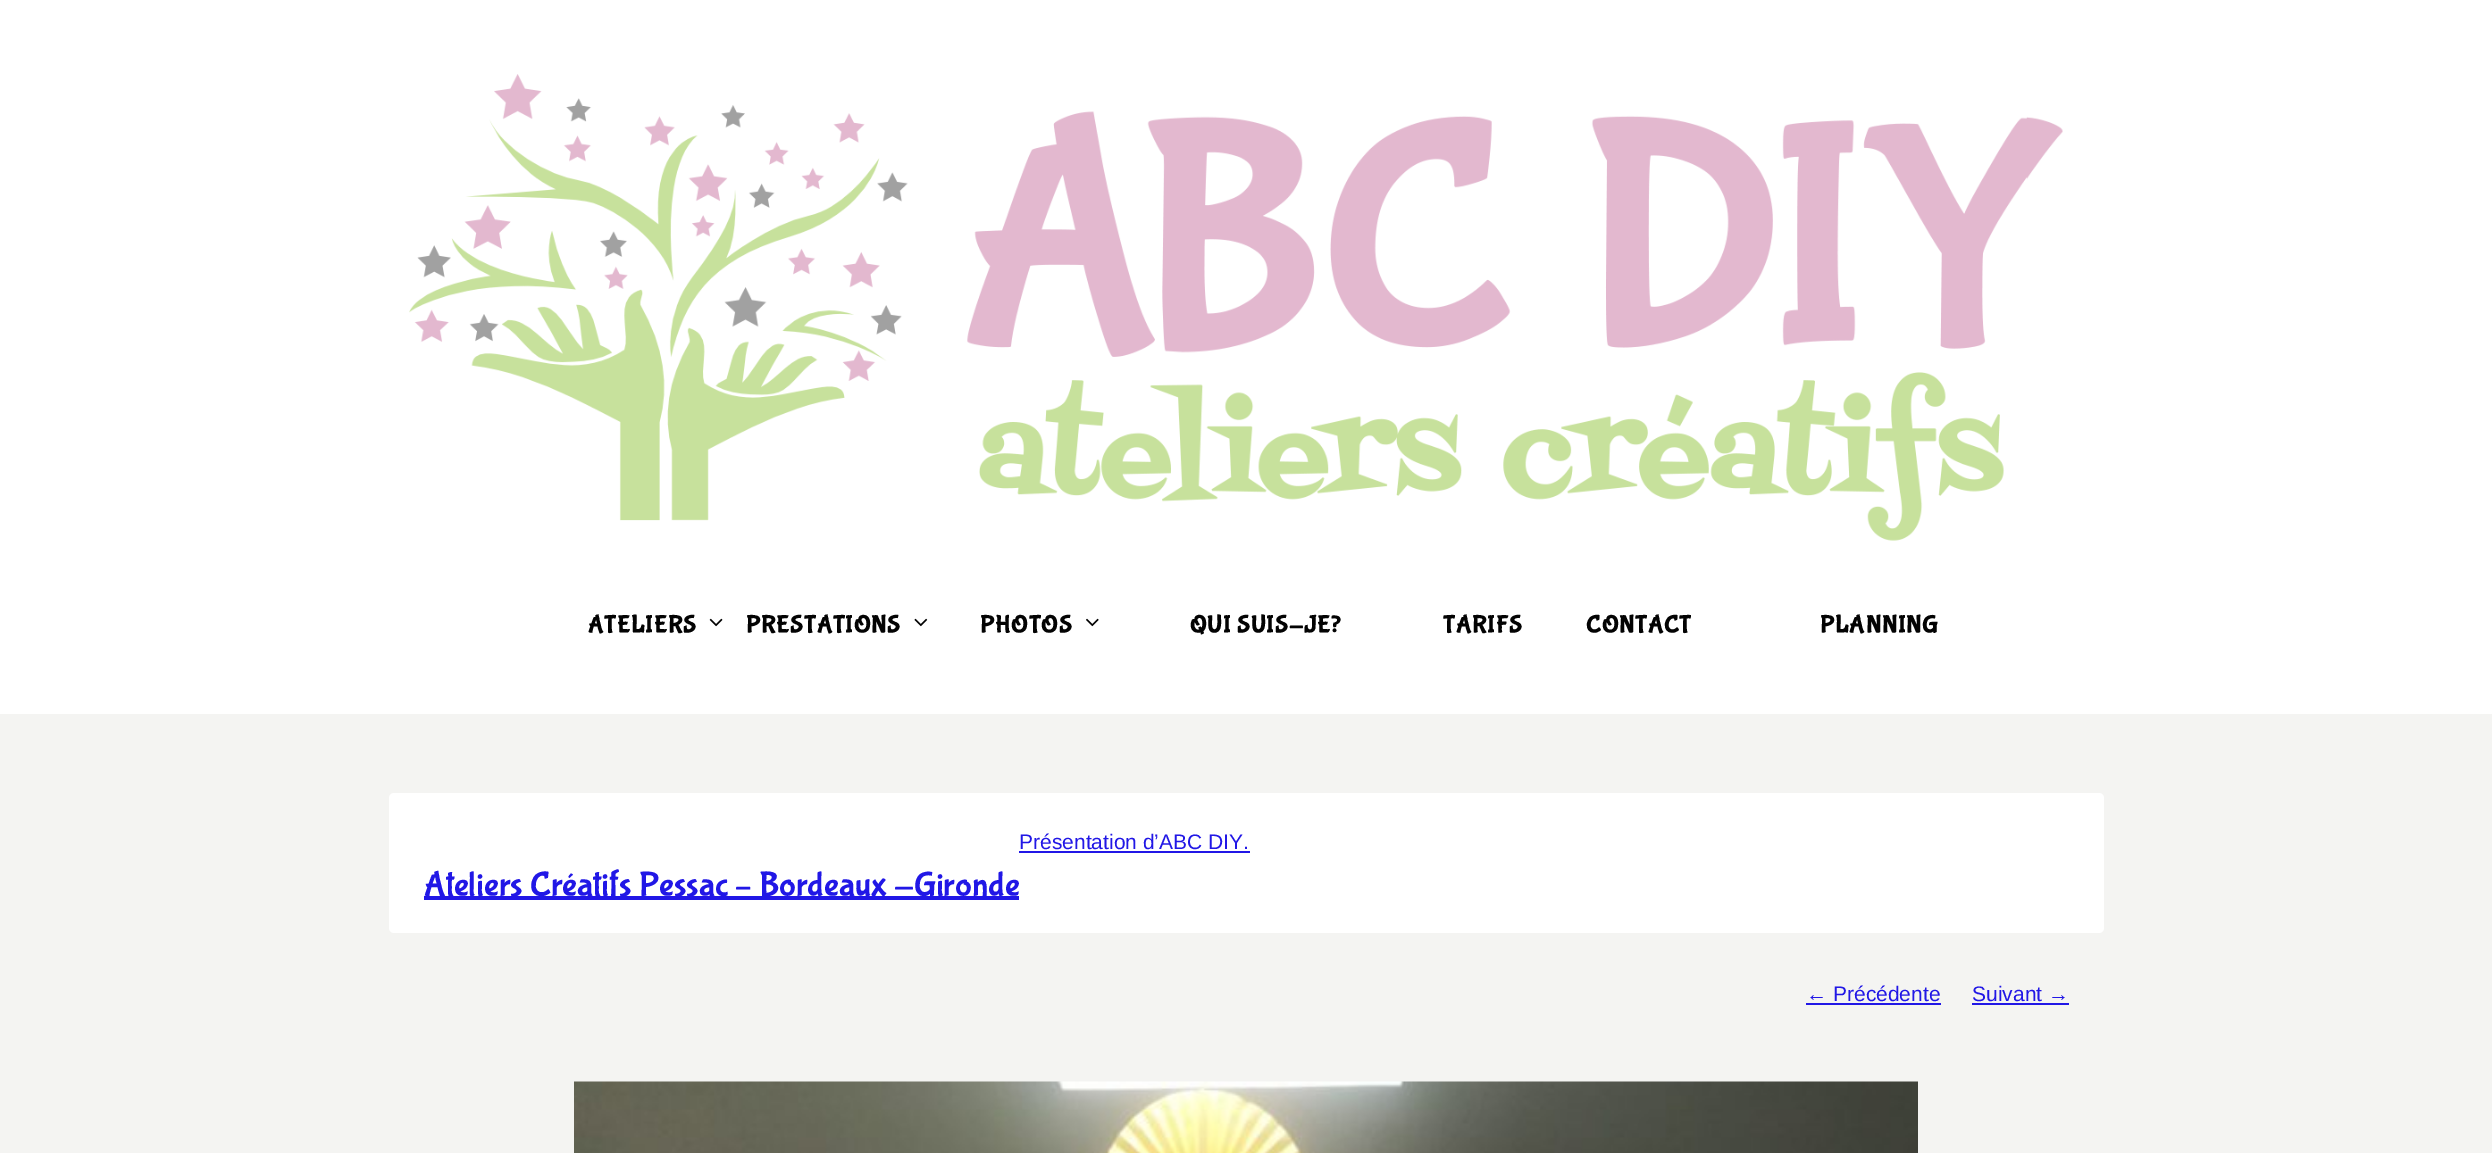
%!PS
<< /PageSize [2492 1153] >> setpagedevice
/rgb { dup -16 bitshift 255 div exch dup -8 bitshift 255 and 255 div exch 255 and 255 div setrgbcolor } def
/font { [ exch dup neg 0 0 3 -1 roll 0 0 ] selectfont } def
/text { moveto show } def
/roundrect { 5 dict begin { /r /h /w /y /x } { exch def } forall
  x r add y moveto x w add y 2 copy h add r arct x w add y h add x 1 index r arct
  x y h add x y r arct x y 2 copy exch w add exch r arct closepath end } def
/picture { 5 dict begin { /h /w /y /x /name } { exch def } forall
  gsave x y translate w h scale
  w h 8 [w 0 0 h 0 0] name (r) file false 3 colorimage grestore end } def
0 1153 translate 1 -1 scale
4 setmiterlimit
/s1 { /LiberationSans-Regular 21 font 16#2117E6 rgb } def
/s2 { /BubblegumSans-Regular 35 font 16#2117E6 rgb } def
16#F4F4F2 rgb
0 0 2492 1153 rectfill
16#FFFFFF rgb
0 0 2492 714 rectfill
(pic1.raw) 409 74 1654 467 picture
/BubblegumSans-Bold 24.5 font
16#030303 rgb
588 632 moveto 1 0 (ATELIERS) ashow
(pic2.raw) 709 618 14 9 picture
746 632 moveto 1 0 (PRESTATIONS) ashow
(pic3.raw) 914 618 14 9 picture
980 632 moveto 1 0 (PHOTOS) ashow
(pic4.raw) 1086 618 13 9 picture
1190 632 moveto 1 0 (QUI SUIS-JE?) ashow
1443 632 moveto 1 0 (TARIFS) ashow
1586 632 moveto 1 0 (CONTACT) ashow
1820 632 moveto 1 0 (PLANNING) ashow
16#FFFFFF rgb
389 793 1715 140 5 roundrect fill
s1
(Présentation d’ABC DIY.) 1019 849 text
1019 851 231 2 rectfill
424 896 595 4 rectfill
s2
(Ateliers Créatifs Pessac – Bordeaux -Gironde) 424 895 text
s1
(← Précédente) 1806 1001 text
1806 1003 135 2 rectfill
(Suivant →) 1972 1001 text
1972 1003 97 2 rectfill
(pic5.raw) 574 1081 1344 72 picture
showpage
